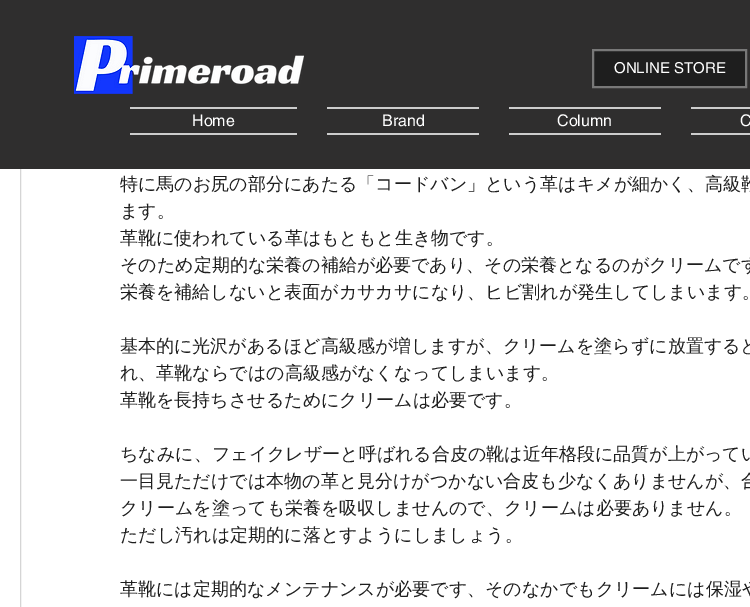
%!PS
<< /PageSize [750 607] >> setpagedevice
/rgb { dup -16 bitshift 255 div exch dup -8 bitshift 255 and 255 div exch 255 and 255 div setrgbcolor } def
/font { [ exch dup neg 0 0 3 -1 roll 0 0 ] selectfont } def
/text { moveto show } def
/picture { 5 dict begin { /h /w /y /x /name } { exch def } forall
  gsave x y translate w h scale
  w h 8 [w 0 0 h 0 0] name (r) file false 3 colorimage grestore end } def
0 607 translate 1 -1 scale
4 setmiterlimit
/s1 { /helvetica-Regular 15 font 16#FFFFFF rgb } def
/s2 { /helvetica-Regular 16 font 16#FFFFFF rgb } def
/s3 { /WenQuanYiZenHei-Medium 18 font 16#1E1E1E rgb } def
16#FFFFFF rgb
0 0 750 607 rectfill
16#D5D5D5 rgb
20.5 -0.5 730 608 rectstroke
16#2F2E2E rgb
0 0 750 169 rectfill
(pic1.raw) 74 36 230 58 picture
16#1E1E1E rgb
593 50 moveto 746 50 lineto 746 87 lineto 593 87 lineto closepath gsave fill grestore
16#787878 rgb
2 setlinewidth
stroke
s1
(ONLINE STORE) 614 73 text
16#CCCCCC rgb
130 107 167 2 rectfill
130 133 167 2 rectfill
s2
(Home) 192 126 text
16#CCCCCC rgb
327 107 152 2 rectfill
327 133 152 2 rectfill
s2
(Brand) 382 126 text
16#CCCCCC rgb
509 107 152 2 rectfill
509 133 152 2 rectfill
s2
(Column) 557 126 text
16#CCCCCC rgb
691 107 59 2 rectfill
691 133 59 2 rectfill
s2
(C) 740 126 text
s3
(特に馬のお尻の部分にあたる「コードバン」という革はキメが細かく、高級靴) 120 190 text
(ます。) 120 217 text
(革靴に使われている革はもともと生き物です。) 120 244 text
(そのため定期的な栄養の補給が必要であり、その栄養となるのがクリームです) 120 271 text
(栄養を補給しないと表面がカサカサになり、ヒビ割れが発生してしまいます。) 120 298 text
(基本的に光沢があるほど高級感が増しますが、クリームを塗らずに放置すると) 120 352 text
(れ、革靴ならではの高級感がなくなってしまいます。) 120 379 text
(革靴を長持ちさせるためにクリームは必要です。) 120 406 text
(ちなみに、フェイクレザーと呼ばれる合皮の靴は近年格段に品質が上がってい) 120 460 text
(一目見ただけでは本物の革と見分けがつかない合皮も少なくありませんが、合) 120 487 text
(クリームを塗っても栄養を吸収しませんので、クリームは必要ありません。) 120 514 text
(ただし汚れは定期的に落とすようにしましょう。) 120 541 text
(革靴には定期的なメンテナンスが必要です、そのなかでもクリームには保湿や) 120 595 text
showpage
